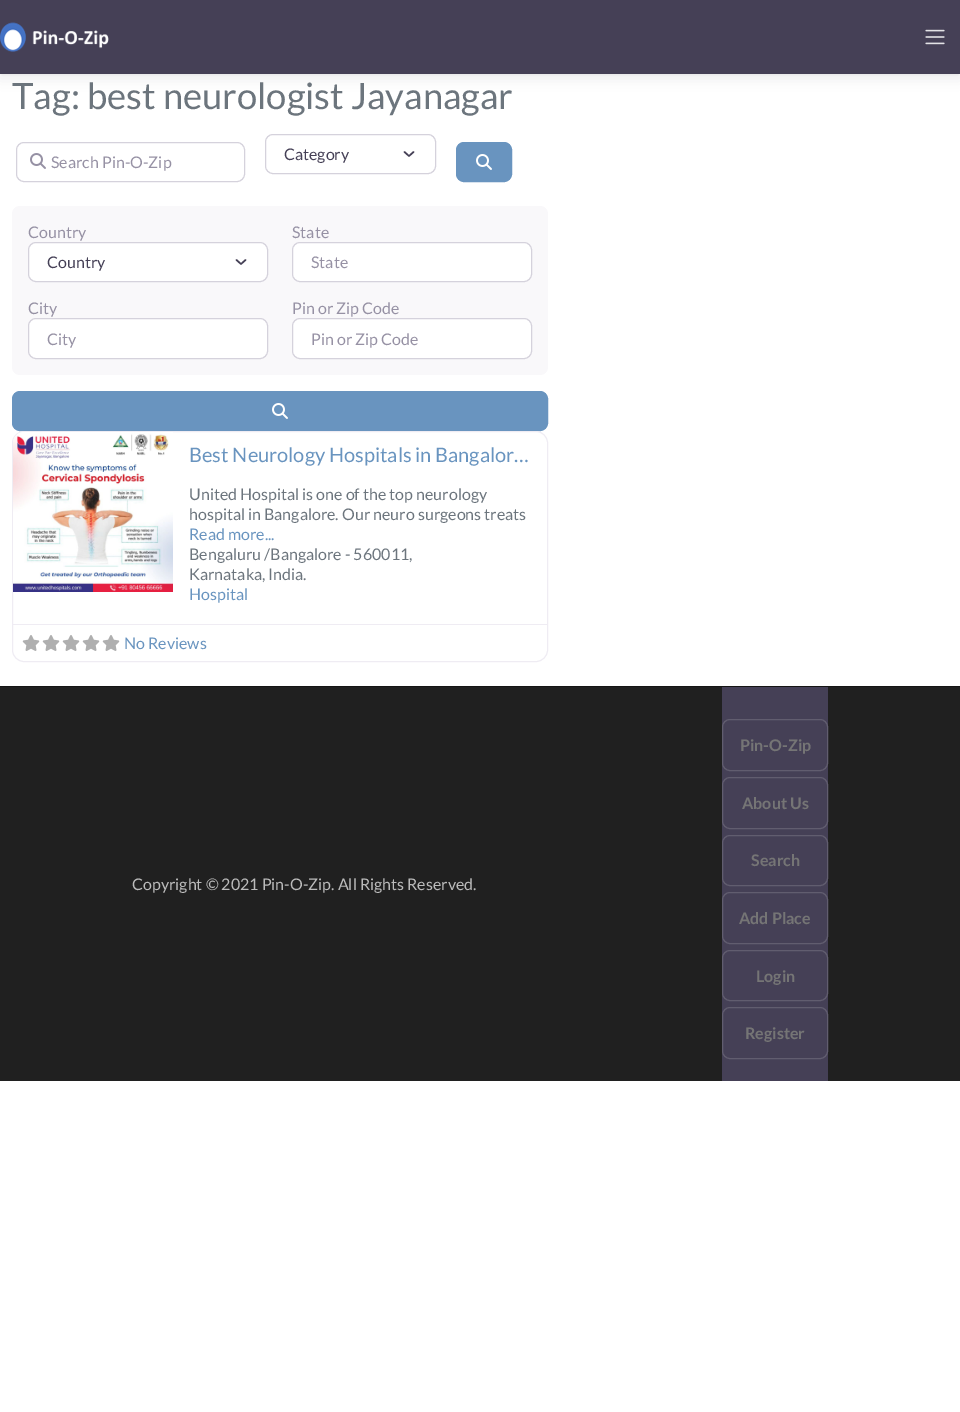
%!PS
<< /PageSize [960 1412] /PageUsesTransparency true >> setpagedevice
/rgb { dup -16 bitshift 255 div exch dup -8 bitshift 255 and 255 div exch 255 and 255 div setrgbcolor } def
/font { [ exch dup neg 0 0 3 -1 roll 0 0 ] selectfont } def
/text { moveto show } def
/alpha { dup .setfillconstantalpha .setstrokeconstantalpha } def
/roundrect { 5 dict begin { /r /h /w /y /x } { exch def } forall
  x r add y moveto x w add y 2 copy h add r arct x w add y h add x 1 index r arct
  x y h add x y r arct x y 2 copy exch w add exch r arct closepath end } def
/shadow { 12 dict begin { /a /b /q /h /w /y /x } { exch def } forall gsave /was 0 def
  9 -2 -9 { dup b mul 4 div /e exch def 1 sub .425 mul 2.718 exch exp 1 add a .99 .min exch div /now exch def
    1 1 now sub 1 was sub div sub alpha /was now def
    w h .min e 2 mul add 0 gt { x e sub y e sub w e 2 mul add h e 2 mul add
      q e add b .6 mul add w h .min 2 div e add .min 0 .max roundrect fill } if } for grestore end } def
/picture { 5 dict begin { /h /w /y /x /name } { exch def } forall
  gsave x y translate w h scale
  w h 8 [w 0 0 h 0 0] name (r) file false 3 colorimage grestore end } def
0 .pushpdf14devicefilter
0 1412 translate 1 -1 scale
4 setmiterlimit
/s1 { /Lato-Regular 36.4 font 16#6C757D rgb } def
/s2 { /Lato-Regular 16 font 16#9691A4 rgb } def
/s3 { /Lato-Regular 16 font 16#454056 rgb } def
/s4 { /Lato-Regular 20 font 16#6994BF rgb } def
/s5 { /Lato-Regular 16 font 16#6C757D rgb } def
/s6 { /Lato-Regular 16 font 16#6994BF rgb } def
/s7 { /Lato-Regular 16 font 16#BBBBBB rgb } def
/s8 { /Lato-Bold 16 font 16#757575 rgb } def
16#FFFFFF rgb
0 0 960 1412 rectfill
16#1F1B2D rgb
0 4 960 74 0 6 0.08 shadow
2 4 956 70 0 1 0.08 shadow
16#454056 rgb
0 0 960 74 rectfill
(pic1.raw) 0 22 109 30 picture
(pic2.raw) 925 29 20 16 picture
s1
(Tag: best neurologist Jayanagar) 12 109 text
16#D5D2DC rgb
16.5 142.5 228 39 7.5 roundrect stroke
(pic3.raw) 30 153 16 16 picture
s2
(Search Pin-O-Zip) 51 168 text
16#454056 rgb
1.5 setlinewidth
1 setlinecap
1 setlinejoin
404.5 152 moveto 409 156 lineto 413.5 152 lineto stroke
16#D5D2DC rgb
1 setlinewidth
0 setlinecap
0 setlinejoin
265.5 134.5 170 39 7.5 roundrect stroke
s3
(Category) 284 160 text
16#6994BF rgb
456.5 142.5 55 39 7.5 roundrect gsave fill grestore
stroke
(pic4.raw) 476 154 16 16 picture
16#F9F8FA rgb
12 206 536 169 8 roundrect fill
s2
(Country) 28 238 text
16#FFFFFF rgb
29 243 238 38 7 roundrect fill
16#454056 rgb
1.5 setlinewidth
1 setlinecap
1 setlinejoin
236.5 260 moveto 241 264 lineto 245.5 260 lineto stroke
16#D5D2DC rgb
1 setlinewidth
0 setlinecap
0 setlinejoin
28.5 242.5 239 39 7.5 roundrect stroke
s3
(Country) 47 268 text
s2
(State) 292 238 text
16#FFFFFF rgb
292.5 242.5 239 39 7.5 roundrect gsave fill grestore
16#D5D2DC rgb
stroke
s2
(State) 311 268 text
(City) 28 314 text
16#FFFFFF rgb
28.5 318.5 239 40 7.5 roundrect gsave fill grestore
16#D5D2DC rgb
stroke
s2
(City) 47 345 text
(Pin or Zip Code) 292 314 text
16#FFFFFF rgb
292.5 318.5 239 40 7.5 roundrect gsave fill grestore
16#D5D2DC rgb
stroke
s2
(Pin or Zip Code) 311 345 text
16#6994BF rgb
12.5 391.5 535 39 7.5 roundrect gsave fill grestore
stroke
(pic4.raw) 272 403 16 16 picture
16#EFECF3 rgb
12.5 431.5 535 230 11.5 roundrect stroke
(pic5.raw) 13 432 160 160 picture
s4
(Best Neurology Hospitals in Bangalor…) 189 462 text
s5
(United Hospital is one of the top neurology) 189 500 text
(hospital in Bangalore. Our neuro surgeons treats) 189 520 text
s6
(Read more...) 189 540 text
s5
(Bengaluru /Bangalore - 560011,) 189 560 text
(Karnataka, India.) 189 580 text
s6
(Hospital) 189 600 text
16#EFECF3 rgb
13 624 534 1 rectfill
(pic6.raw) 22 635 18 16 picture
(pic6.raw) 42 635 18 16 picture
(pic6.raw) 62 635 18 16 picture
(pic6.raw) 82 635 18 16 picture
(pic6.raw) 102 635 18 16 picture
s6
(No Reviews) 124 649 text
16#202020 rgb
0 687 960 394 rectfill
16#151515 rgb
0 686 960 1 rectfill
s7
(Copyright © 2021 Pin-O-Zip. All Rights Reserved.) 132 890 text
16#454056 rgb
722 687 106 394 rectfill
16#615D6F rgb
722.5 719.5 105 51 7.5 roundrect stroke
s8
(Pin-O-Zip) 740 751 text
16#615D6F rgb
722.5 777.5 105 51 7.5 roundrect stroke
s8
(About Us) 742 809 text
16#615D6F rgb
722.5 835.5 105 50 7.5 roundrect stroke
s8
(Search) 751 866 text
16#615D6F rgb
722.5 892.5 105 51 7.5 roundrect stroke
s8
(Add Place) 739 924 text
16#615D6F rgb
722.5 950.5 105 50 7.5 roundrect stroke
s8
(Login) 756 982 text
16#615D6F rgb
722.5 1007.5 105 51 7.5 roundrect stroke
s8
(Register) 745 1039 text
.poppdf14devicefilter showpage
